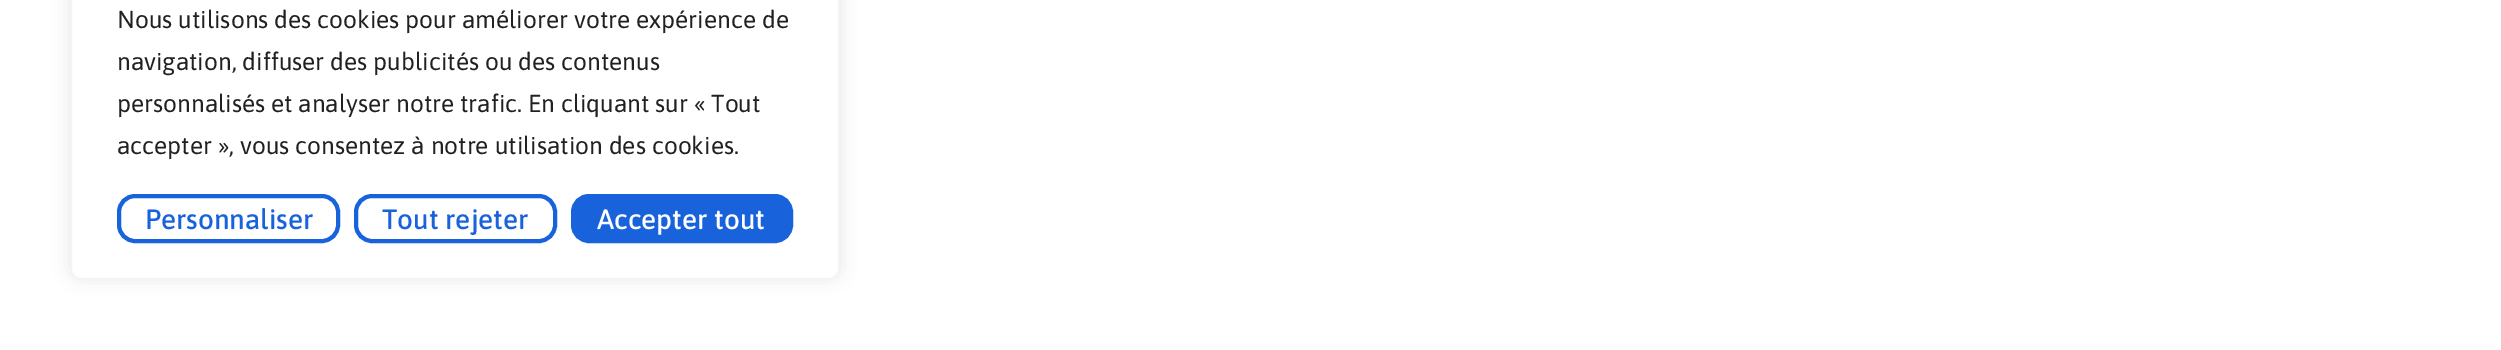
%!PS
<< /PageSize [2501 350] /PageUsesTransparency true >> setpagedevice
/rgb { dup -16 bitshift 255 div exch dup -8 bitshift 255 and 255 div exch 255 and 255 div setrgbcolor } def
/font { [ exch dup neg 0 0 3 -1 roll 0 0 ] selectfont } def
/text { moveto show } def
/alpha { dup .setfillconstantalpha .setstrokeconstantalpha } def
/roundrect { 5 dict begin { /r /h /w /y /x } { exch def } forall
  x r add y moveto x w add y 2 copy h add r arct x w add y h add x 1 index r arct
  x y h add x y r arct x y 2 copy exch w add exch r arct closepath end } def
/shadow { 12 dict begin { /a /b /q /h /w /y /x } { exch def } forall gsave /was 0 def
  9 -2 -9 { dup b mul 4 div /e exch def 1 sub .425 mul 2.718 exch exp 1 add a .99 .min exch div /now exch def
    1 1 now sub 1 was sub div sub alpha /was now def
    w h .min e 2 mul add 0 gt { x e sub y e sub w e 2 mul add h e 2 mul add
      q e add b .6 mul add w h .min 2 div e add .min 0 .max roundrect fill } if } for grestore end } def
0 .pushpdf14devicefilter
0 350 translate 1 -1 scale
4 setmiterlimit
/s1 { /Asap-Regular 24.5 font 16#212121 rgb } def
/s2 { /Asap-Medium 28 font 16#1863DC rgb } def
/s3 { /Asap-Medium 28 font 16#FFFFFF rgb } def
16#FFFFFF rgb
0 0 2501 350 rectfill
gsave
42 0 moveto 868 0 lineto 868 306 lineto 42 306 lineto closepath 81 -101 moveto 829 -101 lineto 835 -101 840 -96 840 -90 curveto 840 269 lineto 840 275 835 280 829 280 curveto 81 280 lineto 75 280 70 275 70 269 curveto 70 -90 lineto 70 -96 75 -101 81 -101 curveto closepath eoclip newpath
16#ACABAB rgb
70 -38 770 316 11 9 0.3 shadow
grestore
16#F4F4F4 rgb
2 setlinewidth
71 -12 768 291 10 roundrect stroke
s1
(Nous utilisons des cookies pour améliorer votre expérience de) 117 28 text
(navigation, diffuser des publicités ou des contenus) 117 70 text
(personnalisés et analyser notre trafic. En cliquant sur « Tout) 117 112 text
(accepter », vous consentez à notre utilisation des cookies.) 117 154 text
16#1863DC rgb
4 setlinewidth
119 196 219 45 16 roundrect stroke
s2
(Personnaliser) 145 229 text
356 196 199 45 16 roundrect stroke
(Tout rejeter) 382 229 text
573 196 218 45 16 roundrect gsave fill grestore
stroke
s3
(Accepter tout) 597 229 text
.poppdf14devicefilter showpage
